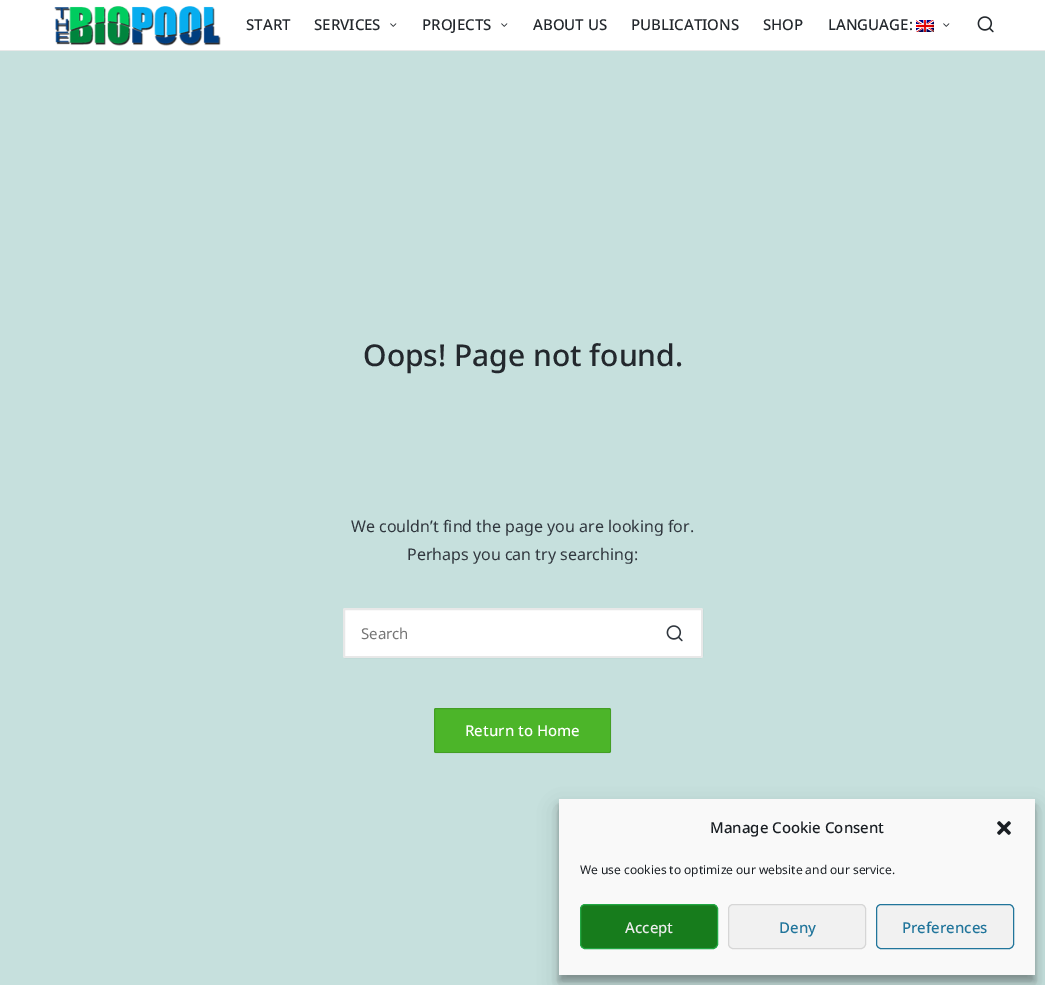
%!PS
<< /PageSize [1045 985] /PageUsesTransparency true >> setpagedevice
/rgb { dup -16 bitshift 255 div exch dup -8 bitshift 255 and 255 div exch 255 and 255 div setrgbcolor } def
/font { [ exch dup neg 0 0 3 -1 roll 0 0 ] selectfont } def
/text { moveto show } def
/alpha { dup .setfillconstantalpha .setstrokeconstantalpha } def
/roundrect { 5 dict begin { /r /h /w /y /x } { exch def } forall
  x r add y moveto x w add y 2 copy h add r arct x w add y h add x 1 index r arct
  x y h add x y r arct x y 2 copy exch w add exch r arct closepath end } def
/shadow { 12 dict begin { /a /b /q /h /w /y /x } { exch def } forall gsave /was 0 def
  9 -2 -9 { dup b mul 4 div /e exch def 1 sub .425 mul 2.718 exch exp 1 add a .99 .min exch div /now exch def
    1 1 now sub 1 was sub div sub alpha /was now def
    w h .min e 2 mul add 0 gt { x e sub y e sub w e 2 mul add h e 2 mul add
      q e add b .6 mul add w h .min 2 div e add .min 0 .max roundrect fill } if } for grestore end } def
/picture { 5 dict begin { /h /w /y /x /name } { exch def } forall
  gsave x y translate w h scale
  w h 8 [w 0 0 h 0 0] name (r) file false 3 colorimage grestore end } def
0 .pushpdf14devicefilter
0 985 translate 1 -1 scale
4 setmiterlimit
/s1 { /NotoSans-Medium 15 font 16#23282D rgb } def
/s2 { /NotoSans-Medium 30 font 16#23282D rgb } def
/s3 { /NotoSans-Regular 16 font 16#30373E rgb } def
/s4 { /NotoSans-Regular 15 font 16#757575 rgb } def
/s5 { /NotoSans-Medium 15 font 16#FFFFFF rgb } def
/s6 { /NotoSans-Medium 15 font 16#191E23 rgb } def
/s7 { /NotoSans-Regular 12 font 16#191E23 rgb } def
/s8 { /NotoSans-Medium 15 font 16#EDEDED rgb } def
/s9 { /NotoSans-Medium 15 font 16#21759B rgb } def
16#C6E0DD rgb
0 0 1045 985 rectfill
16#FFFFFF rgb
0 0 1045 50 rectfill
16#E9E9E9 rgb
0 50 1045 1 rectfill
(pic1.raw) 54 6 167 40 picture
s1
(START) 246 30 text
(SERVICES) 314 30 text
(pic2.raw) 390 23 7 4 picture
(PROJECTS) 422 30 text
(pic2.raw) 501 23 7 4 picture
(ABOUT US) 533 30 text
(PUBLICATIONS) 631 30 text
(SHOP) 763 30 text
(LANGUAGE:) 828 30 text
(pic3.raw) 916 20 18 12 picture
(pic2.raw) 943 23 7 4 picture
(pic4.raw) 977 16 17 17 picture
s2
(Oops! Page not found.) 363 366 text
s3
(We couldn’t find the page you are looking for.) 351 532 text
(Perhaps you can try searching:) 407 560 text
16#FFFFFF rgb
343 608 360 50 2 roundrect fill
0.09 alpha
16#000000 rgb
2 setlinewidth
344 609 358 48 1 roundrect stroke
1 alpha
s4
(Search) 361 639 text
(pic5.raw) 666 625 17 17 picture
16#4CB529 rgb
434 708 177 45 2 roundrect fill
0.12 alpha
16#000000 rgb
1 setlinewidth
434.5 708.5 176 44 1.5 roundrect stroke
1 alpha
s5
(Return to Home) 465 736 text
16#000000 rgb
559 805 476 176 0 3 0.23 shadow
559 809 476 176 0 10 0.19 shadow
16#F9F9F9 rgb
559 799 476 176 rectfill
s6
(Manage Cookie Consent) 710 833 text
(pic6.raw) 997 821 14 14 picture
s7
(We use cookies to optimize our website and our service.) 580 874 text
16#177C1C rgb
580.5 904.5 137 44 4.5 roundrect gsave fill grestore
16#23A844 rgb
stroke
s8
(Accept) 625 933 text
16#F1F1F1 rgb
728.5 904.5 137 44 4.5 roundrect gsave fill grestore
16#D6D6D6 rgb
stroke
s9
(Deny) 779 933 text
16#F1F1F1 rgb
876.5 904.5 137 44 4.5 roundrect gsave fill grestore
16#21759B rgb
stroke
(Preferences) 902 933 text
.poppdf14devicefilter showpage
